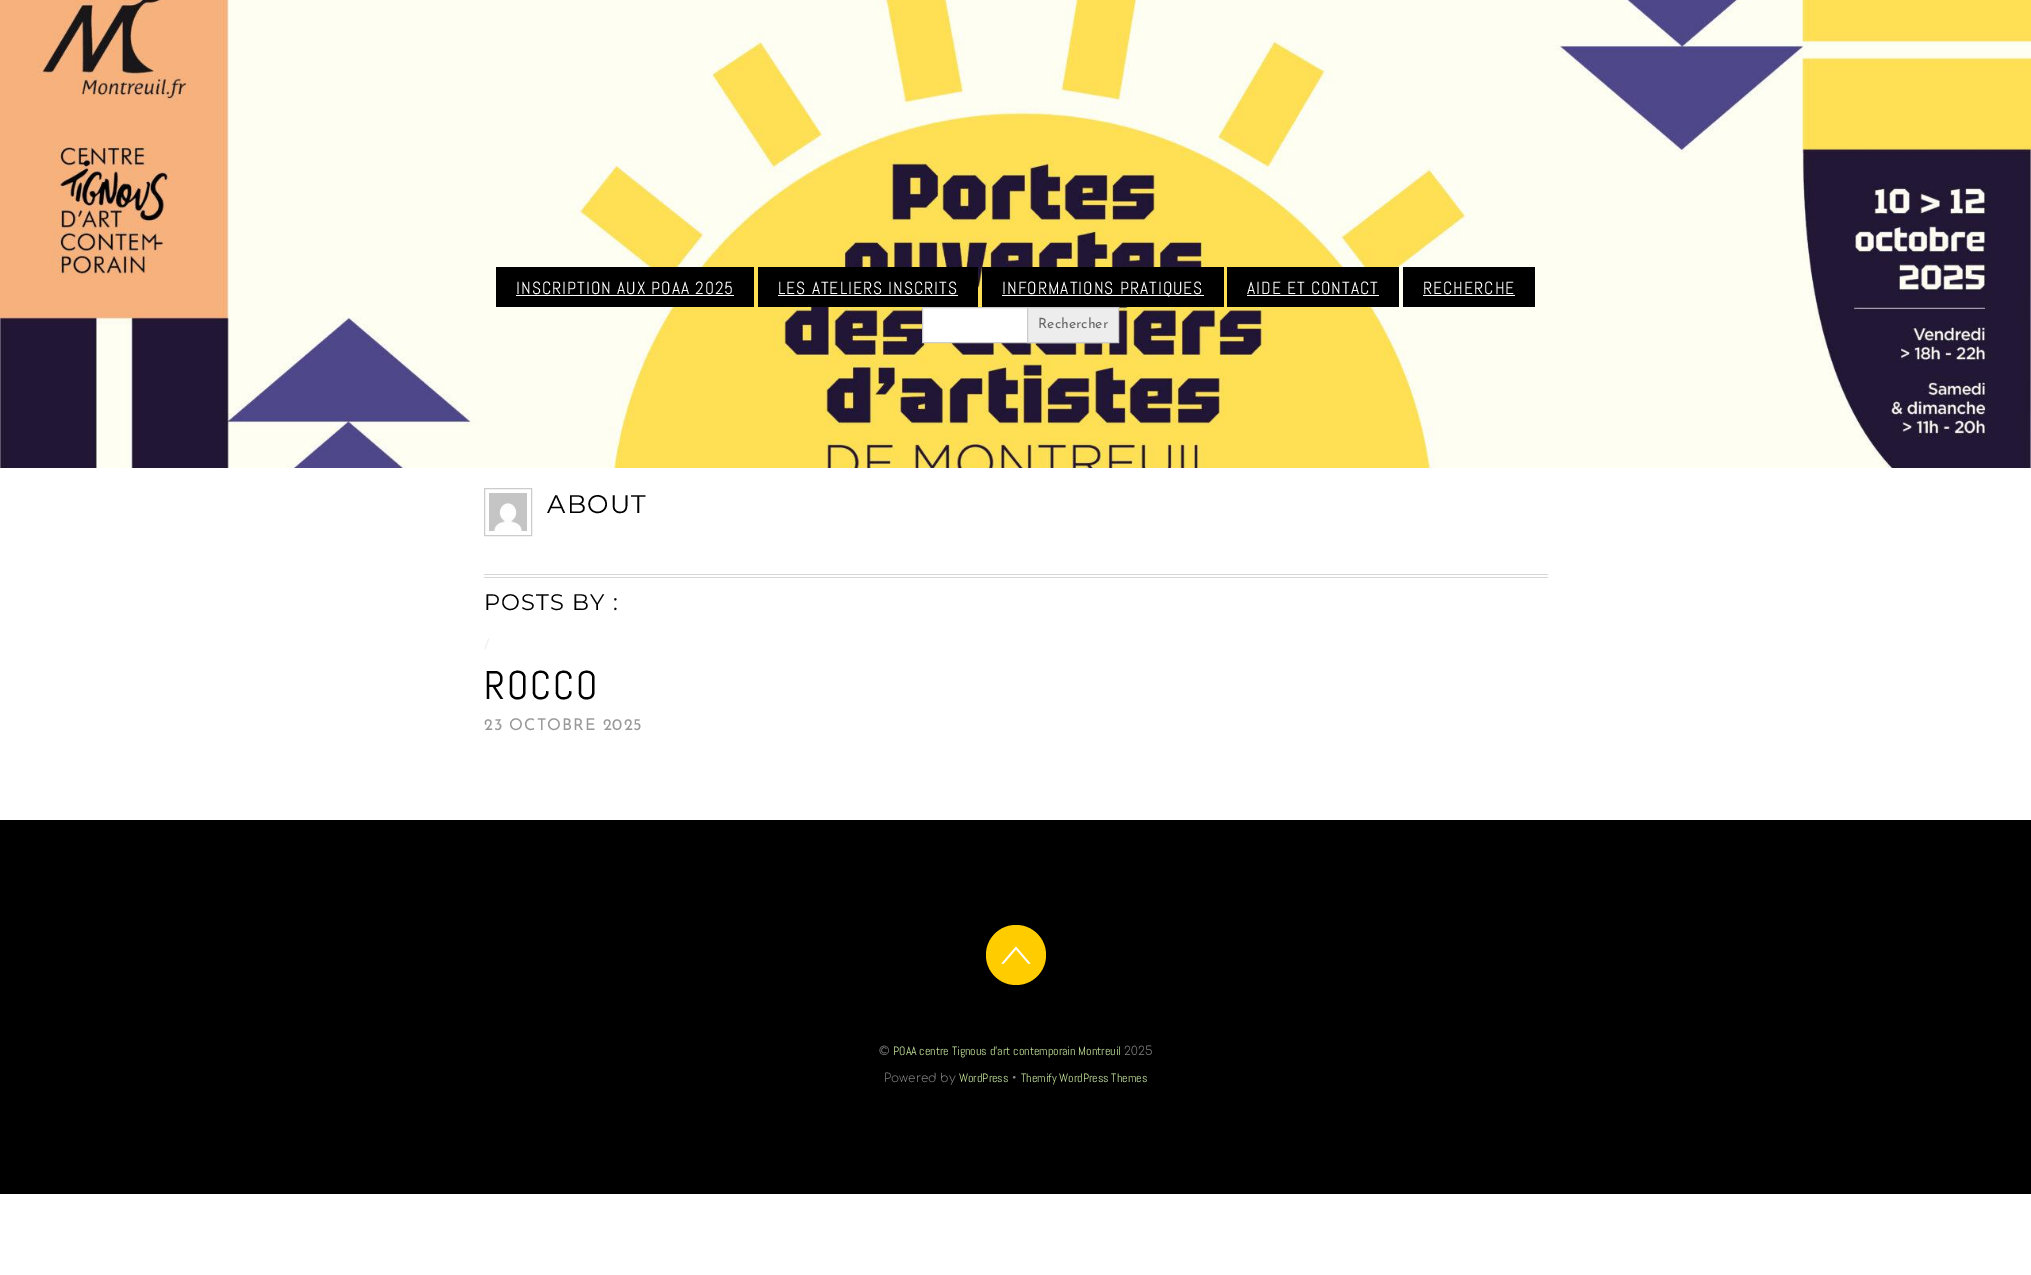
%!PS
<< /PageSize [2031 1275] >> setpagedevice
/rgb { dup -16 bitshift 255 div exch dup -8 bitshift 255 and 255 div exch 255 and 255 div setrgbcolor } def
/font { [ exch dup neg 0 0 3 -1 roll 0 0 ] selectfont } def
/text { moveto show } def
/circle { newpath 0 360 arc closepath } def
/picture { 5 dict begin { /h /w /y /x /name } { exch def } forall
  gsave x y translate w h scale
  w h 8 [w 0 0 h 0 0] name (r) file false 3 colorimage grestore end } def
0 1275 translate 1 -1 scale
4 setmiterlimit
/s1 { /JosefinSans-Thin 14 font 16#666666 rgb } def
/s2 { /JosefinSans-Thin 14 font 16#EEEEEE rgb } def
/s3 { /Comfortaa-Light 12 font 16#888888 rgb } def
/s4 { /Abel-Regular 12 font 16#C2E39A rgb } def
16#FFFFFF rgb
0 0 2031 1275 rectfill
(pic1.raw) 0 0 2031 468 picture
16#000000 rgb
496 267 258 40 rectfill
/Abel-Regular 17.6 font
16#FFFFFF rgb
516 294 moveto 1 0 (INSCRIPTION AUX POAA 2025) ashow
516 295 218 1 rectfill
16#000000 rgb
758 267 220 40 rectfill
16#FFFFFF rgb
778 294 moveto 1 0 (LES ATELIERS INSCRITS) ashow
778 295 180 1 rectfill
16#000000 rgb
982 267 242 40 rectfill
16#FFFFFF rgb
1002 295 202 1 rectfill
1002 294 moveto 1 0 (INFORMATIONS PRATIQUES) ashow
16#000000 rgb
1227 267 172 40 rectfill
16#FFFFFF rgb
1247 294 moveto 1 0 (AIDE ET CONTACT) ashow
1247 295 132 1 rectfill
16#000000 rgb
1403 267 132 40 rectfill
16#FFFFFF rgb
1423 294 moveto 1 0 (RECHERCHE) ashow
1423 295 92 1 rectfill
923 308 104 34 rectfill
16#CCCCCC rgb
922.5 307.5 186 35 rectstroke
16#EDEDED rgb
1027.5 307.5 moveto 1118.5 307.5 lineto 1118.5 342.5 lineto 1027.5 342.5 lineto closepath gsave fill grestore
16#CCCCCC rgb
stroke
s1
(Rechercher) 1038 328 text
16#CCCCCC rgb
484.5 488.5 47 47 rectstroke
(pic2.raw) 489 493 38 38 picture
/Montserrat-Regular 25.5 font
16#000000 rgb
547 513 moveto 1.25 0 (ABOUT) ashow
16#D6D6D6 rgb
484 574 1064 1 rectfill
484 577 1064 1 rectfill
/Montserrat-Regular 22.5 font
16#000000 rgb
484 610 moveto 1.1 0 (POSTS BY :) ashow
s2
(/) 484 649 text
/Abel-Regular 40 font
16#000000 rgb
484 699 moveto 2 0 (ROCCO) ashow
/JosefinSans-Thin 16.25 font
16#999999 rgb
484 730 moveto 1 0 (23 OCTOBRE 2025) ashow
16#000000 rgb
0 820 2031 374 rectfill
16#FFCC00 rgb
1016 955 30 circle fill
(pic3.raw) 1001 946 30 18 picture
s3
(©) 879 1055 text
s4
(POAA centre Tignous d'art contemporain Montreuil) 893 1055 text
s3
(2025) 1124 1055 text
(Powered by) 884 1082 text
s4
(WordPress) 959 1082 text
s3
(•) 1012 1082 text
s4
(Themify WordPress Themes) 1021 1082 text
showpage
